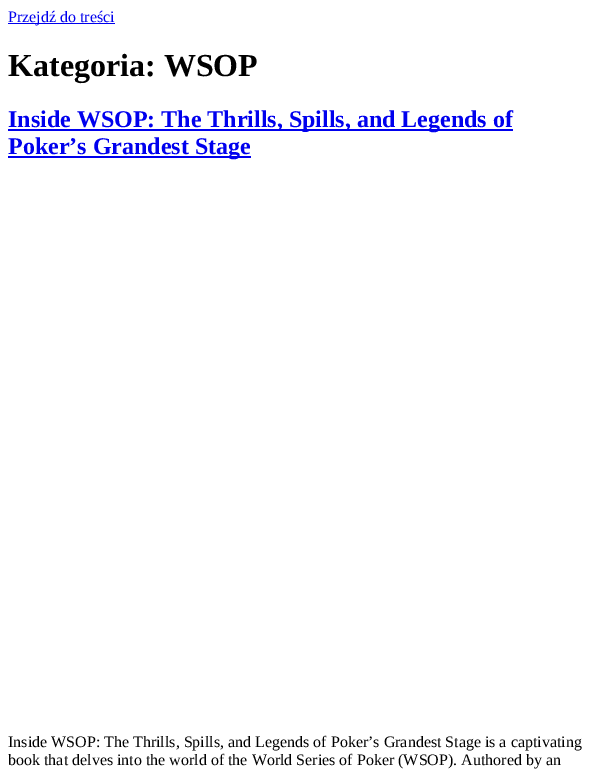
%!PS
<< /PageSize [604 771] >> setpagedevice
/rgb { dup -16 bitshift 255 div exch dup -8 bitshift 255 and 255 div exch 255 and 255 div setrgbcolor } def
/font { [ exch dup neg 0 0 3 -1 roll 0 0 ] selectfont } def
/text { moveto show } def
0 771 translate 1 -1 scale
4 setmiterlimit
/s1 { /LiberationSerif-Regular 16 font 16#0000EE rgb } def
/s2 { /LiberationSerif-Bold 32 font 16#000000 rgb } def
/s3 { /LiberationSerif-Bold 24 font 16#0000EE rgb } def
/s4 { /LiberationSerif-Regular 16 font 16#000000 rgb } def
16#FFFFFF rgb
0 0 604 771 rectfill
16#0000EE rgb
8 23 107 1 rectfill
s1
(Przejdź do treści) 8 22 text
s2
(Kategoria: WSOP) 8 76 text
16#0000EE rgb
8 129 505 2 rectfill
s3
(Inside WSOP: The Thrills, Spills, and Legends of) 8 127 text
8 156 243 2 rectfill
(Poker’s Grandest Stage) 8 154 text
s4
(Inside WSOP: The Thrills, Spills, and Legends of Poker’s Grandest Stage is a captivating) 8 747 text
(book that delves into the world of the World Series of Poker \(WSOP\). Authored by an) 8 765 text
showpage
